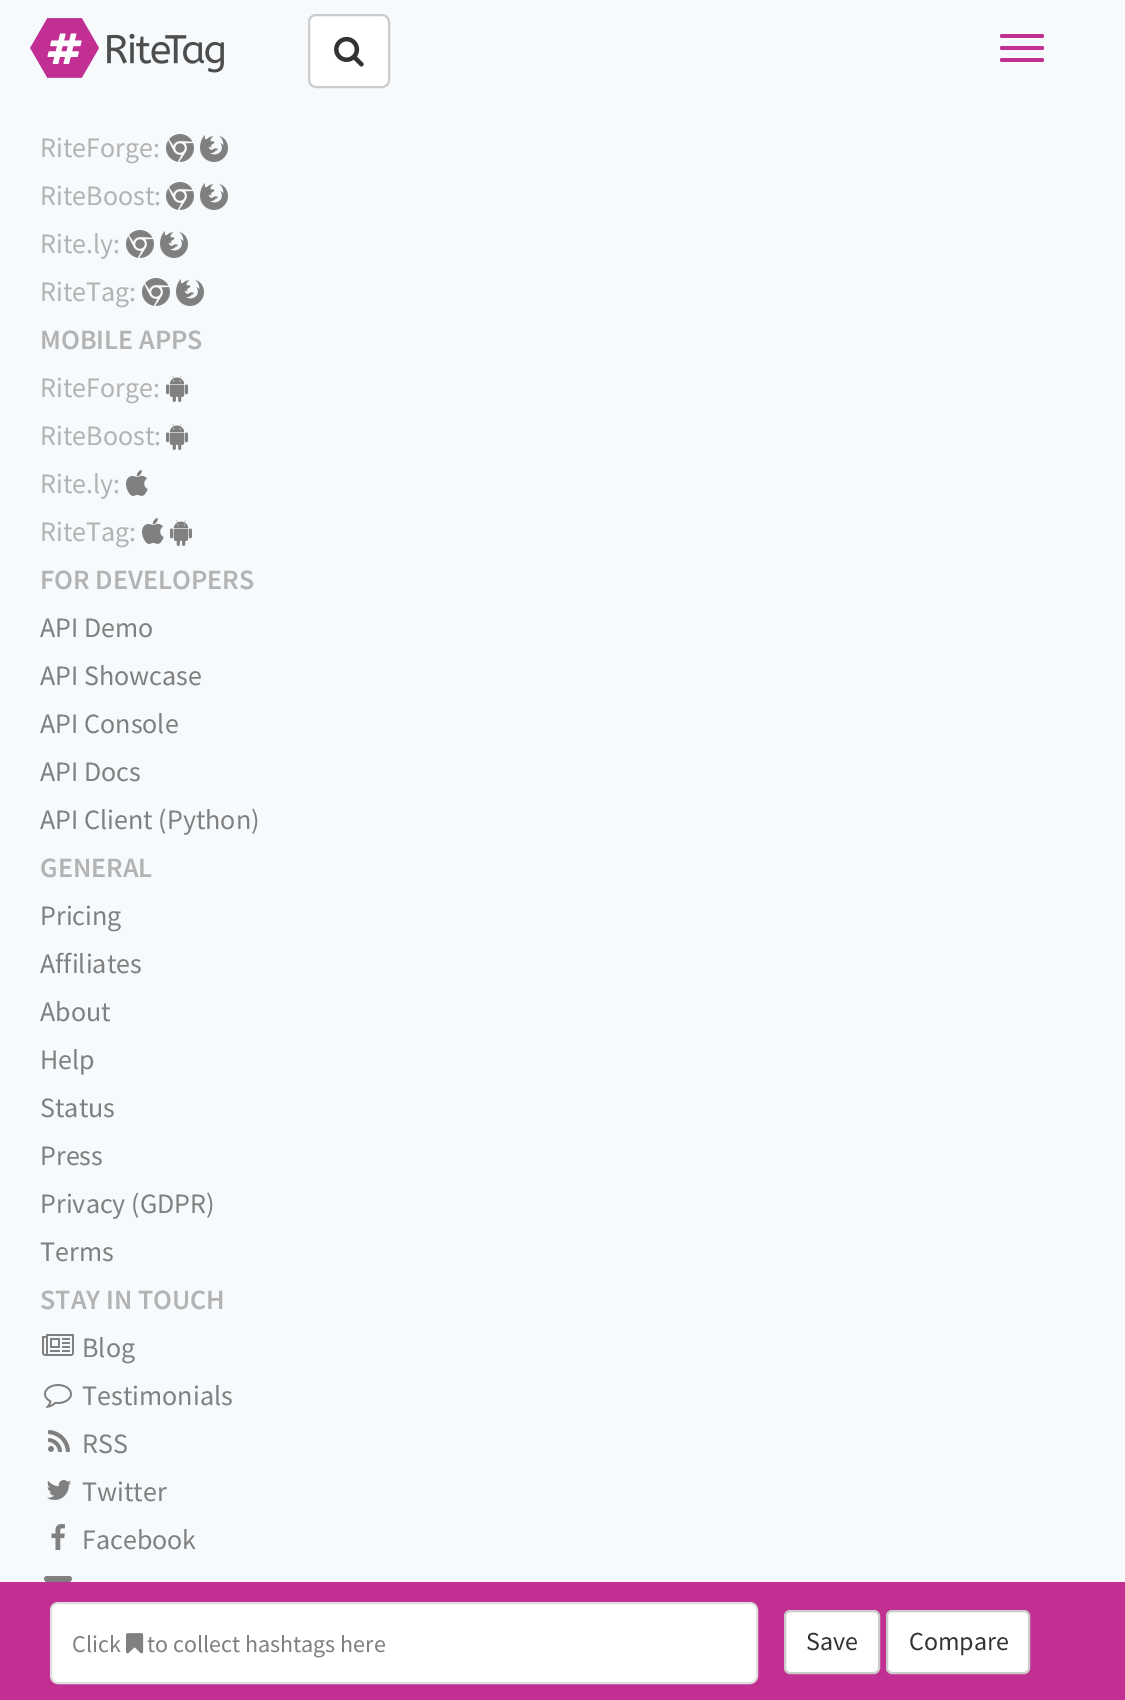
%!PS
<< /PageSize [1125 1700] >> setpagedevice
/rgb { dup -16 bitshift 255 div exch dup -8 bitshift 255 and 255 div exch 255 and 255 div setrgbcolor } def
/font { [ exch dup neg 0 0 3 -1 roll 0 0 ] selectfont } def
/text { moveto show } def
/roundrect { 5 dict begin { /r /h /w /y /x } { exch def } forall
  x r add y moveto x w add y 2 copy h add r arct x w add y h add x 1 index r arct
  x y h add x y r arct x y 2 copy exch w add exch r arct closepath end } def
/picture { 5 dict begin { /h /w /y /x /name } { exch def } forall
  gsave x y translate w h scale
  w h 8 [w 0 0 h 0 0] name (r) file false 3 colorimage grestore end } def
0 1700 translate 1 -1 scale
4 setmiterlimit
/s1 { /SourceSansPro-Regular 28 font 16#B3B3B3 rgb } def
/s2 { /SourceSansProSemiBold-SemiBold 28 font 16#B3B3B3 rgb } def
/s3 { /SourceSansPro-Regular 28 font 16#808080 rgb } def
/s4 { /SourceSansPro-Regular 24 font 16#808080 rgb } def
/s5 { /SourceSansPro-Regular 26 font 16#333333 rgb } def
16#F7FAFC rgb
0 0 1125 1700 rectfill
(pic1.raw) 30 18 194 60 picture
16#FFFFFF rgb
309 15 80 72 7 roundrect gsave fill grestore
16#CCCCCC rgb
2 setlinewidth
stroke
(pic2.raw) 334 36 30 31 picture
16#C12F93 rgb
1000 34 44 4 2 roundrect fill
1000 46 44 4 2 roundrect fill
1000 58 44 4 2 roundrect fill
s1
(RiteForge:) 40 157 text
(pic3.raw) 166 134 28 28 picture
(pic4.raw) 200 135 28 27 picture
(RiteBoost:) 40 205 text
(pic3.raw) 166 182 28 28 picture
(pic4.raw) 200 183 28 27 picture
(Rite.ly:) 40 253 text
(pic3.raw) 126 230 28 28 picture
(pic4.raw) 160 231 28 27 picture
(RiteTag:) 40 301 text
(pic3.raw) 142 278 28 28 picture
(pic4.raw) 176 279 28 27 picture
s2
(MOBILE APPS) 40 349 text
s1
(RiteForge:) 40 397 text
(pic5.raw) 166 376 22 26 picture
(RiteBoost:) 40 445 text
(pic5.raw) 166 424 22 26 picture
(Rite.ly:) 40 493 text
(pic6.raw) 126 470 22 26 picture
(RiteTag:) 40 541 text
(pic6.raw) 142 518 22 26 picture
(pic5.raw) 170 520 22 26 picture
s2
(FOR DEVELOPERS) 40 589 text
s3
(API Demo) 40 637 text
(API Showcase) 40 685 text
(API Console) 40 733 text
(API Docs) 40 781 text
(API Client \(Python\)) 40 829 text
s2
(GENERAL) 40 877 text
s3
(Pricing) 40 925 text
(Affiliates) 40 973 text
(About) 40 1021 text
(Help) 40 1069 text
(Status) 40 1117 text
(Press) 40 1165 text
(Privacy \(GDPR\)) 40 1213 text
(Terms) 40 1261 text
s2
(STAY IN TOUCH) 40 1309 text
(pic7.raw) 42 1334 32 22 picture
s3
(Blog) 82 1357 text
(pic8.raw) 44 1384 28 24 picture
(Testimonials) 82 1405 text
(pic9.raw) 48 1430 22 22 picture
(RSS) 82 1453 text
(pic10.raw) 47 1480 25 20 picture
(Twitter) 82 1501 text
(pic11.raw) 51 1524 14 26 picture
(Facebook) 82 1549 text
(pic12.raw) 44 1576 28 6 picture
16#C12F93 rgb
0 1582 1125 118 rectfill
16#FFFFFF rgb
51 1603 706 80 7 roundrect gsave fill grestore
16#DFDFDF rgb
stroke
s4
(Click) 72 1652 text
(pic13.raw) 126 1633 18 21 picture
(to collect hashtags here) 147 1652 text
16#FFFFFF rgb
785 1611 94 62 5 roundrect gsave fill grestore
16#CCCCCC rgb
stroke
s5
(Save) 806 1650 text
16#FFFFFF rgb
887 1611 142 62 5 roundrect gsave fill grestore
16#CCCCCC rgb
stroke
s5
(Compare) 909 1650 text
showpage
